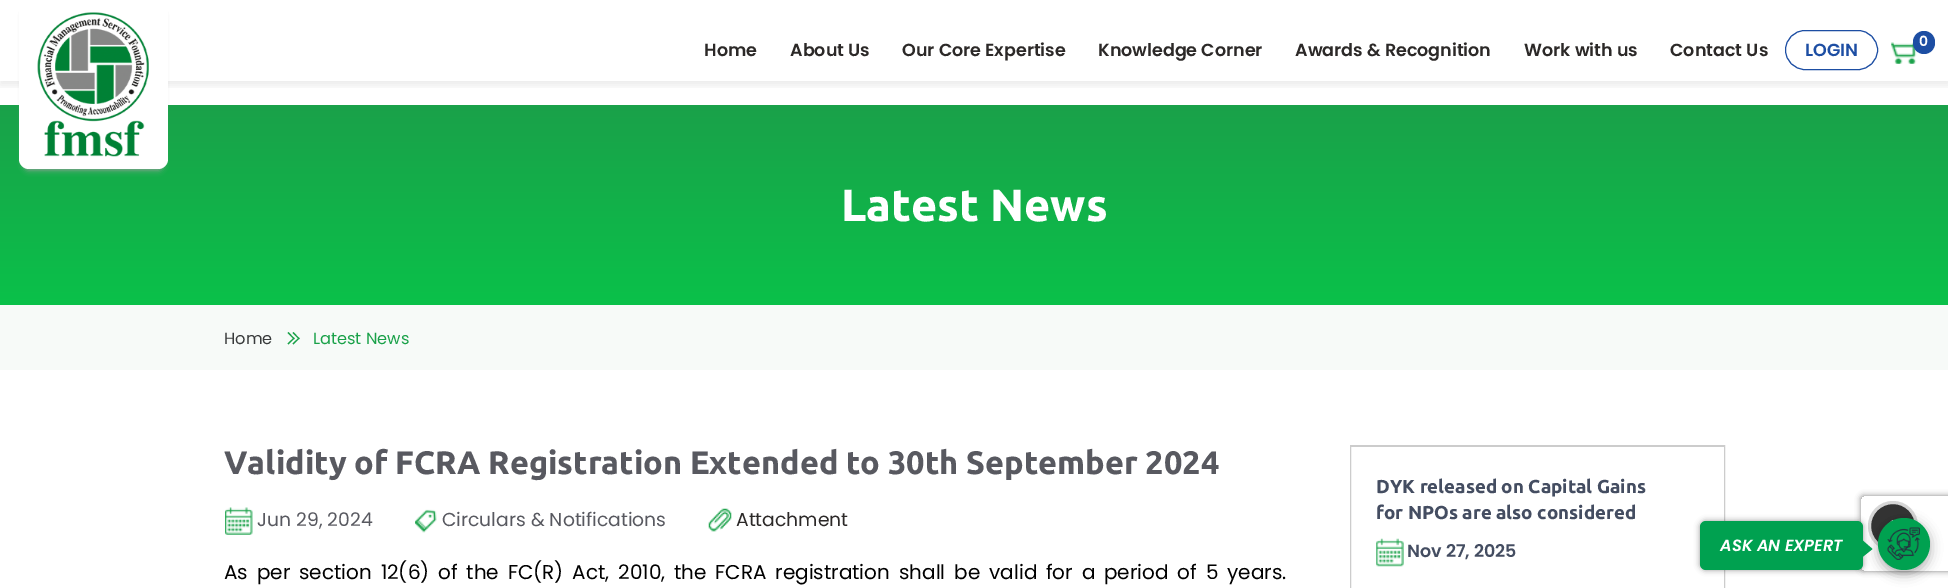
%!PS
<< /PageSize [1948 588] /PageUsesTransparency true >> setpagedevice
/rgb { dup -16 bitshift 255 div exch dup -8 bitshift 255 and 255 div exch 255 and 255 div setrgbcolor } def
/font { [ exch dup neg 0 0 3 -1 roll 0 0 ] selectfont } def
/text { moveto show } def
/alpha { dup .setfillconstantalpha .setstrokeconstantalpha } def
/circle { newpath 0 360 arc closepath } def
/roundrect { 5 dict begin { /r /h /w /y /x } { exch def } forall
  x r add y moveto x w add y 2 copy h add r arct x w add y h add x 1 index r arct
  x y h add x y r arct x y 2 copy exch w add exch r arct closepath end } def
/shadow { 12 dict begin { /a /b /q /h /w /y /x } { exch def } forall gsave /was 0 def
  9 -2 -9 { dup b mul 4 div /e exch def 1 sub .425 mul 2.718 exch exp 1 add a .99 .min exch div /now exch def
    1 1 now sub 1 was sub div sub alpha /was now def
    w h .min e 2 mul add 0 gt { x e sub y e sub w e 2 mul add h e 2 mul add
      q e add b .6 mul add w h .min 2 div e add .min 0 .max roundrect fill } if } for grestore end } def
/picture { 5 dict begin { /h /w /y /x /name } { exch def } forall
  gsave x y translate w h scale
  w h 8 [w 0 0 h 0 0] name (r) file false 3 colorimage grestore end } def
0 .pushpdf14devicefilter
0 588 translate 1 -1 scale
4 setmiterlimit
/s1 { /Poppins-SemiBold 17.5 font 16#2C2928 rgb } def
/s2 { /Poppins-SemiBold 14 font 16#FFFFFF rgb } def
/s3 { /Poppins-SemiBold 17.5 font 16#1D4EA3 rgb } def
/s4 { /Ubuntu-Bold 45 font 16#FFFFFF rgb } def
/s5 { /Poppins-Regular 16.25 font 16#383A3B rgb } def
/s6 { /Poppins-Regular 16.25 font 16#1AA149 rgb } def
/s7 { /Ubuntu-Bold 32.5 font 16#585960 rgb } def
/s8 { /Poppins-Regular 18.75 font 16#585960 rgb } def
/s9 { /Poppins-Regular 18.75 font 16#2C2928 rgb } def
/s10 { /Ubuntu-Bold 18.75 font 16#444D61 rgb } def
/s11 { /Poppins-SemiBold 17.5 font 16#444D61 rgb } def
/s12 { /Poppins-SemiBoldItalic 16.25 font 16#FFFFFF rgb } def
16#FFFFFF rgb
0 0 1948 588 rectfill
gsave
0 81 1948 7 rectclip
16#000000 rgb
0 4 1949 81 0 4.5 0.08 shadow
grestore
gsave 0 105 moveto 1948 105 lineto 1948 305 lineto 0 305 lineto closepath clip newpath
<< /ShadingType 2 /ColorSpace /DeviceRGB /Coords [974 305 974 105] /Extend [true true] /Function << /FunctionType 2 /Domain [0 1] /C0 [0.039 0.757 0.29] /C1 [0.102 0.631 0.286] /N 1 >> >> shfill grestore
16#A0A0A0 rgb
24 11 139 159 5 3 1 shadow
16#FFFFFF rgb
19 0 moveto 168 0 lineto 168 159 lineto 168 164.5 163.5 169 158 169 curveto 29 169 lineto 23.5 169 19 164.5 19 159 curveto closepath fill
(pic1.raw) 37 12 112 145 picture
s1
(Home) 704 56 text
(About Us) 790 56 text
(Our Core Expertise) 902 56 text
(Knowledge Corner) 1098 56 text
(Awards & Recognition) 1295 56 text
(Work with us) 1524 56 text
(Contact Us) 1670 56 text
(pic2.raw) 1891 42 26 22 picture
16#1D4EA3 rgb
1913 31 22 23 11 roundrect fill
s2
(0) 1919 46 text
16#1D4EA3 rgb
1785.5 30.5 92 39 19.5 roundrect stroke
s3
(LOGIN) 1805 56 text
s4
(Latest News) 841 221 text
16#F7FAF8 rgb
0 305 1948 65 rectfill
s5
(Home) 224 344 text
16#1AA149 rgb
287.5 333 moveto 288.5 332 lineto 294.5 338.5 lineto 294 339.5 lineto closepath fill
287.5 343.5 moveto 294 337.5 lineto 294.5 338.5 lineto 288.5 344.5 lineto closepath fill
292.5 333 moveto 293.5 332 lineto 299.5 338.5 lineto 299 339.5 lineto closepath fill
292.5 343.5 moveto 299 337.5 lineto 299.5 338.5 lineto 293.5 344.5 lineto closepath fill
(Latest News) 313 344 text
s7
(Validity of FCRA Registration Extended to 30th September 2024) 224 474 text
(pic3.raw) 225 507 28 28 picture
s8
(Jun 29, 2024) 257 526 text
(pic4.raw) 415 509 22 24 picture
(Circulars & Notifications) 442 526 text
(pic5.raw) 708 508 24 24 picture
s9
(Attachment) 736 526 text
/Poppins-Regular 20 font
16#000000 rgb
224 579 moveto 3.5 0 32 (As per section 12\(6\) of the FC\(R\) Act, 2010, the FCRA registration shall be valid for a period of 5 years.) widthshow
16#CCCCCC rgb
1350.5 445.5 374 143 rectstroke
1351 446 373 1 rectfill
s10
(DYK released on Capital Gains) 1376 493 text
(for NPOs are also considered) 1376 519 text
(pic6.raw) 1376 538 28 29 picture
s11
(Nov 27, 2025) 1407 557 text
gsave
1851 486 moveto 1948 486 lineto 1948 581 lineto 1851 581 lineto closepath 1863.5 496 moveto 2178.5 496 lineto 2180 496 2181 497 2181 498.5 curveto 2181 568.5 lineto 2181 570 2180 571 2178.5 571 curveto 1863.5 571 lineto 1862 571 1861 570 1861 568.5 curveto 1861 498.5 lineto 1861 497 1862 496 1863.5 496 curveto closepath eoclip newpath
16#808080 rgb
1861 496 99 75 2.5 3 1 shadow
grestore
16#333333 rgb
1893 526 23.5 circle gsave fill grestore
16#D6D6D6 rgb
3 setlinewidth
stroke
16#FFFFFF rgb
1892.5 520 moveto 1894.5 522 lineto 1886.5 530 lineto 1884.5 528 lineto closepath fill
16#000000 rgb
1878 521 52 53 26 6 0.16 shadow
1878 521 52 53 26 6 0.16 shadow
16#00A150 rgb
1904 544 26 circle fill
16#000000 rgb
1700 521 163 49 6 3 0.4 shadow
16#00A150 rgb
1700 521 163 49 6 roundrect fill
s12
(ASK AN EXPERT) 1720 551 text
16#00A150 rgb
1857.5 561 moveto 1857.5 536 lineto 1872.5 549 lineto closepath fill
(pic7.raw) 1887 527 33 33 picture
.poppdf14devicefilter showpage
